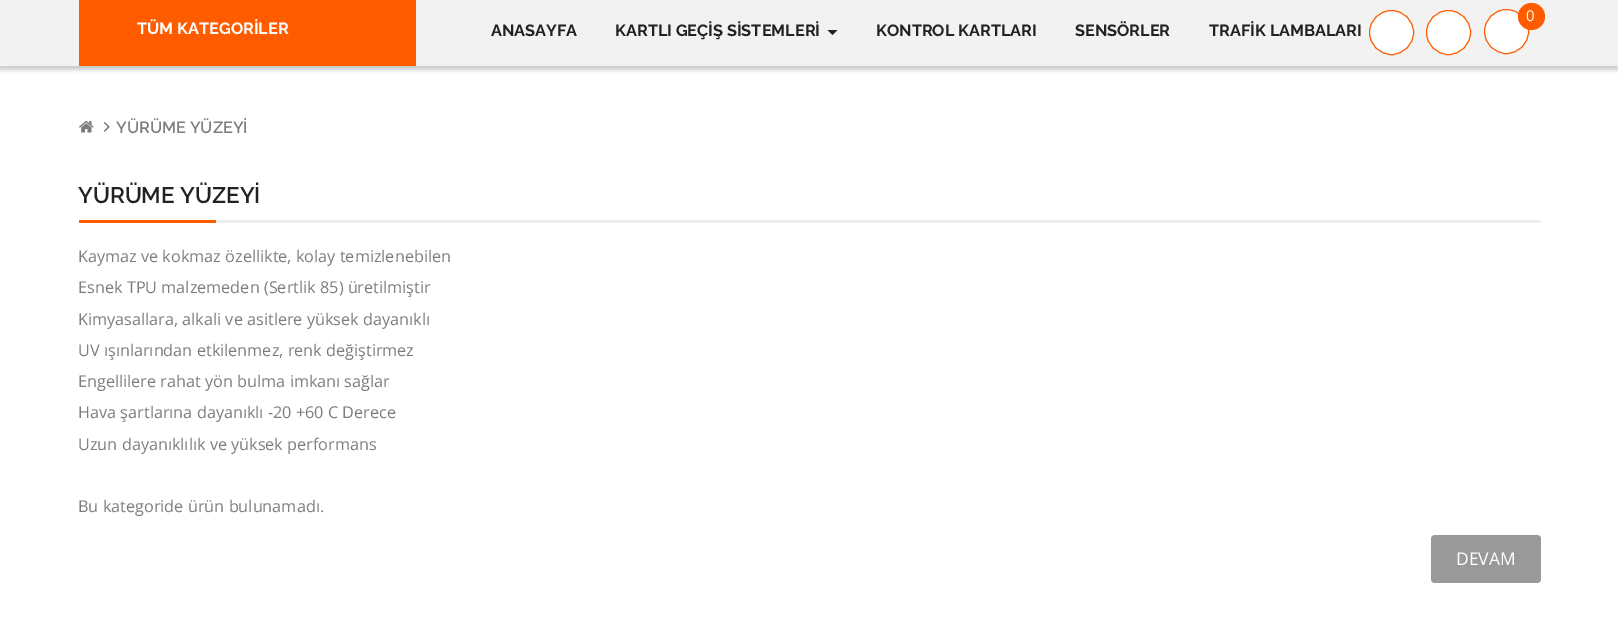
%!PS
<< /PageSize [1618 629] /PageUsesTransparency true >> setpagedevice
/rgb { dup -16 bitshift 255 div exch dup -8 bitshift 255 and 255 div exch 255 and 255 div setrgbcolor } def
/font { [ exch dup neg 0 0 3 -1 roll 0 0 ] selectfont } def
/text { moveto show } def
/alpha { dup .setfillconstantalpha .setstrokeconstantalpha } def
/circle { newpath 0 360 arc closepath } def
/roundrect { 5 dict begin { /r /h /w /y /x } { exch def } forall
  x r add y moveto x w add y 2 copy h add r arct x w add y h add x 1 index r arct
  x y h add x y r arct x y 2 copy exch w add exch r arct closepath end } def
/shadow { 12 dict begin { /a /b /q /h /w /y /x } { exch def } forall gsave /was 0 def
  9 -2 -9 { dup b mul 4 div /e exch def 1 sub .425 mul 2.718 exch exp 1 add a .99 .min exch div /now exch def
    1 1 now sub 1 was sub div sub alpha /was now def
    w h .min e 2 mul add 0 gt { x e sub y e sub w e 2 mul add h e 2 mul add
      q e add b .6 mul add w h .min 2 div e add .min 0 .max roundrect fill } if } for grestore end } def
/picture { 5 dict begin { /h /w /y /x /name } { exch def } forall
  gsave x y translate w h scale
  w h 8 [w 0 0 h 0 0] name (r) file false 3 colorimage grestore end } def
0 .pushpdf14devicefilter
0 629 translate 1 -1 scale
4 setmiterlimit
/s1 { /Raleway-Bold 16.25 font 16#FFFFFF rgb } def
/s2 { /OpenSans-Regular 15 font 16#FFFFFF rgb } def
/s3 { /Raleway-Bold 16.25 font 16#222222 rgb } def
/s4 { /Raleway-SemiBold 16.25 font 16#7D7D7D rgb } def
/s5 { /Raleway-SemiBold 22.5 font 16#222222 rgb } def
/s6 { /OpenSans-Regular 16.25 font 16#7D7D7D rgb } def
/s7 { /OpenSans-Regular 17.5 font 16#FFFFFF rgb } def
16#FFFFFF rgb
0 0 1618 629 rectfill
16#000000 rgb
-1 1 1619 69 0 2 0.2 shadow
16#F2F2F2 rgb
0 0 1618 66 rectfill
16#FF5C00 rgb
79 0 337 66 rectfill
s1
(TÜM KATEGORİLER) 137 34 text
1391.5 32.5 22 circle gsave fill grestore
16#FF5C00 rgb
stroke
16#FFFFFF rgb
1448.5 32.5 22 circle gsave fill grestore
16#FF5C00 rgb
stroke
16#FFFFFF rgb
1506.5 31.5 22 circle gsave fill grestore
16#FF5C00 rgb
stroke
1531.5 16.5 13.5 circle fill
s2
(0) 1526 21 text
s3
(ANASAYFA) 491 36 text
(KARTLI GEÇİŞ SİSTEMLERİ) 615 36 text
827.5 30 moveto 837.5 30 lineto 832.5 35 lineto closepath fill
(KONTROL KARTLARI) 876 36 text
(SENSÖRLER) 1075 36 text
(TRAFİK LAMBALARI) 1209 36 text
(pic1.raw) 79 120 15 13 picture
(pic2.raw) 103 122 7 10 picture
s4
(YÜRÜME YÜZEYİ) 116 133 text
16#EEEEEE rgb
216 220 1325 3 rectfill
s5
(YÜRÜME YÜZEYİ) 78 203 text
16#FF5C00 rgb
79 220 137 3 rectfill
s6
(Kaymaz ve kokmaz özellikte, kolay temizlenebilen) 78 262 text
(Esnek TPU malzemeden \(Sertlik 85\) üretilmiştir) 78 293 text
(Kimyasallara, alkali ve asitlere yüksek dayanıklı) 78 325 text
(UV ışınlarından etkilenmez, renk değiştirmez) 78 356 text
(Engellilere rahat yön bulma imkanı sağlar) 78 387 text
(Hava şartlarına dayanıklı -20 +60 C Derece) 78 418 text
(Uzun dayanıklılık ve yüksek performans) 78 450 text
(Bu kategoride ürün bulunamadı.) 78 512 text
16#999999 rgb
1431 535 110 48 4 roundrect fill
s7
(DEVAM) 1456 565 text
.poppdf14devicefilter showpage
